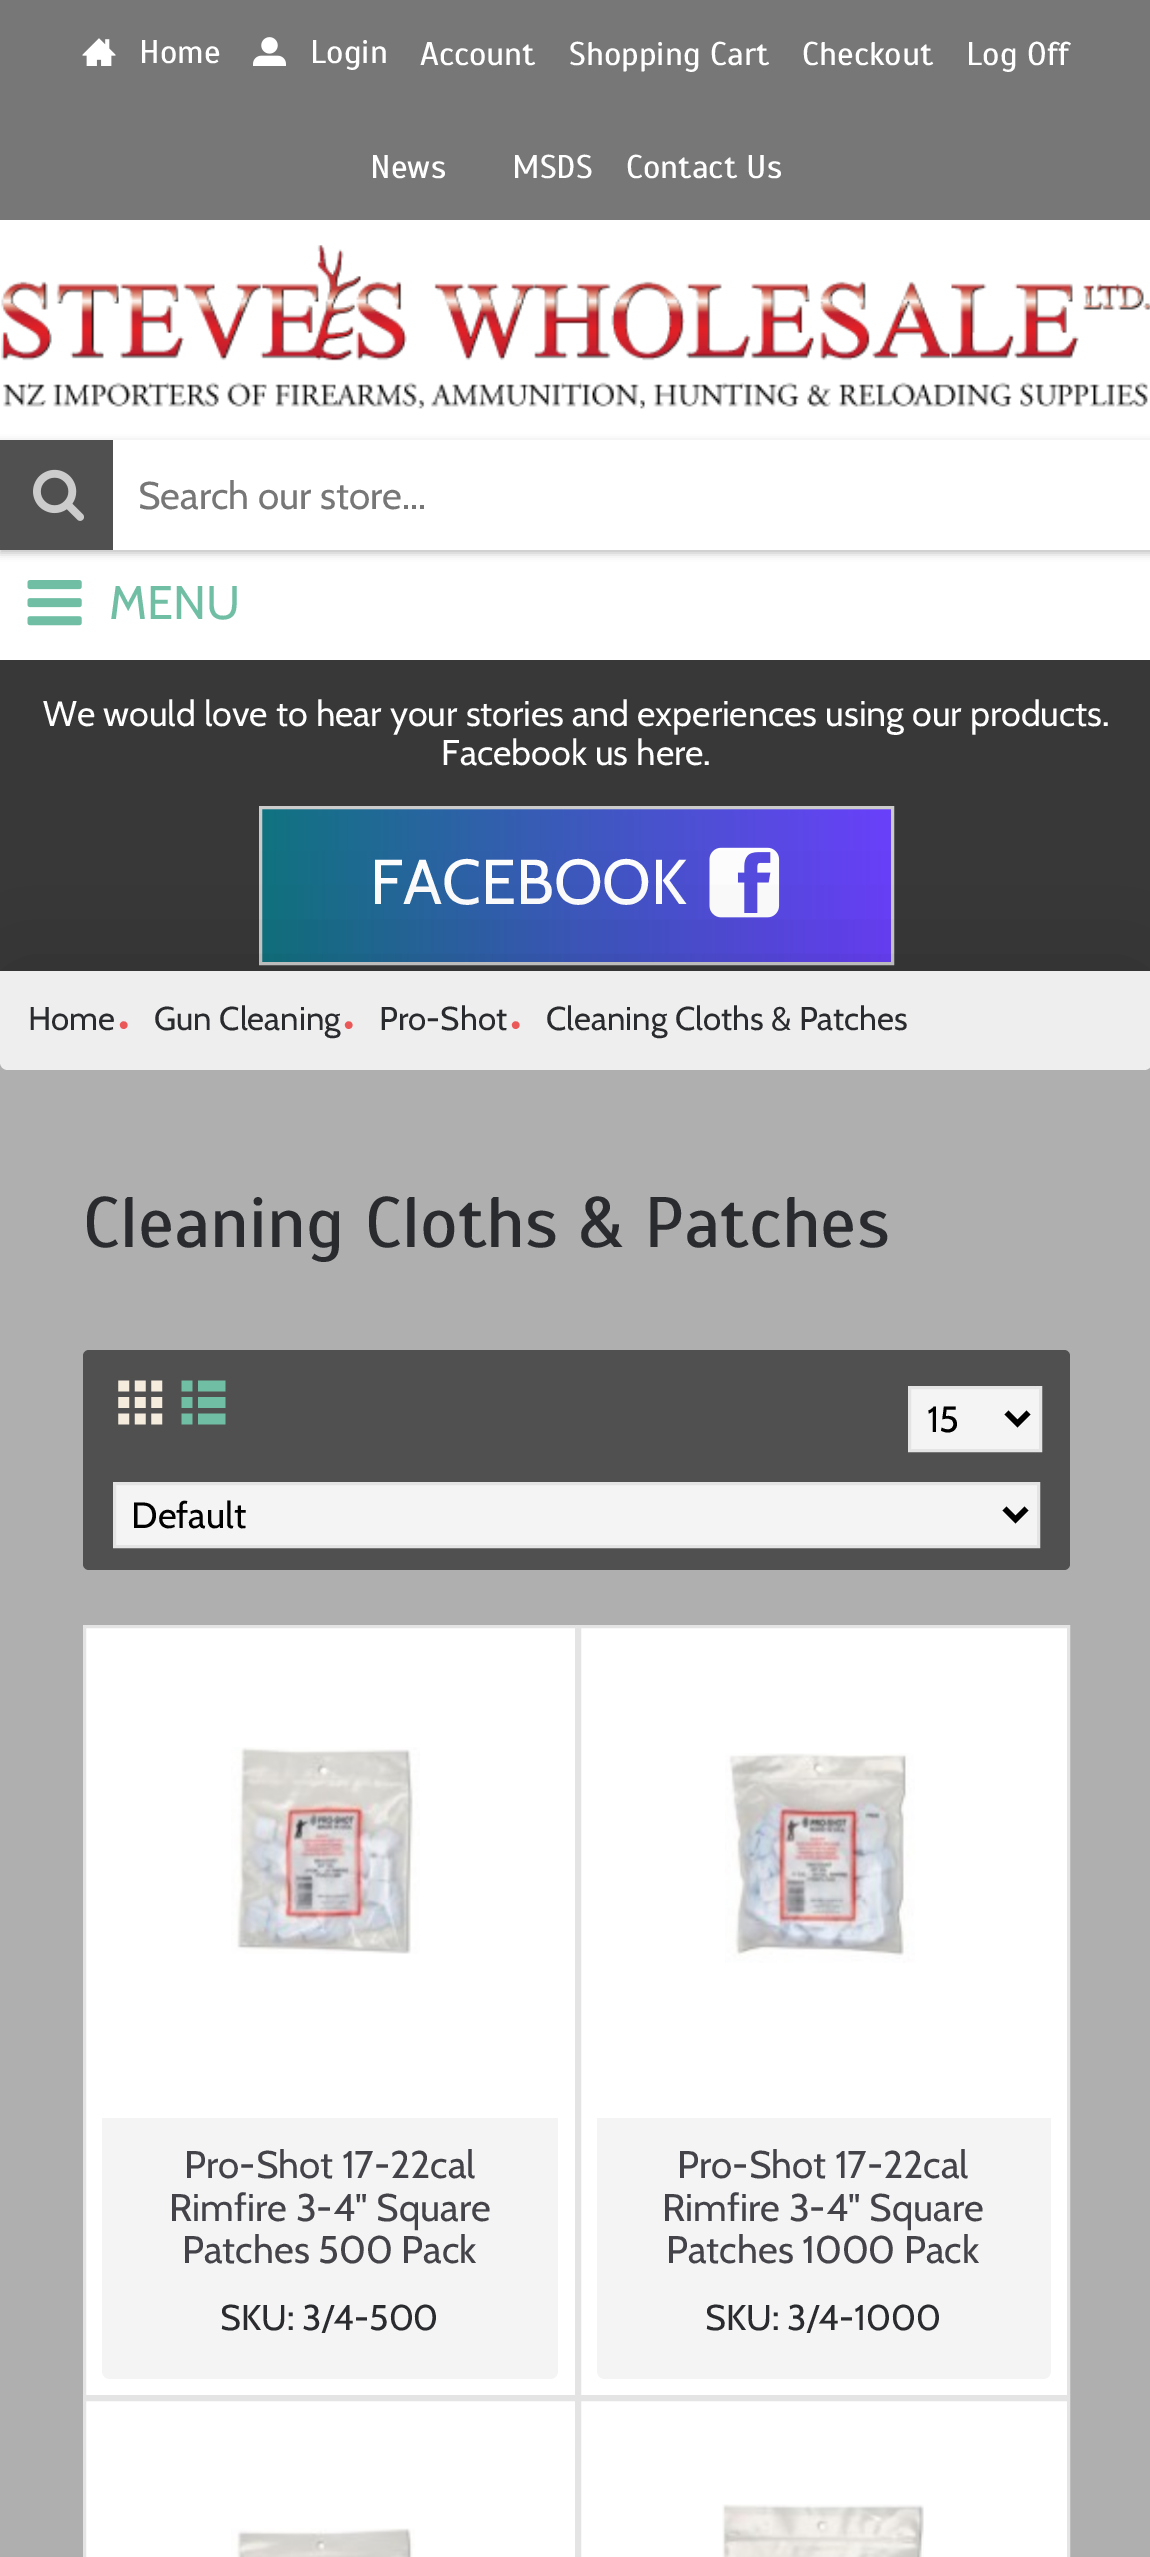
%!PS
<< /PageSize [1150 2557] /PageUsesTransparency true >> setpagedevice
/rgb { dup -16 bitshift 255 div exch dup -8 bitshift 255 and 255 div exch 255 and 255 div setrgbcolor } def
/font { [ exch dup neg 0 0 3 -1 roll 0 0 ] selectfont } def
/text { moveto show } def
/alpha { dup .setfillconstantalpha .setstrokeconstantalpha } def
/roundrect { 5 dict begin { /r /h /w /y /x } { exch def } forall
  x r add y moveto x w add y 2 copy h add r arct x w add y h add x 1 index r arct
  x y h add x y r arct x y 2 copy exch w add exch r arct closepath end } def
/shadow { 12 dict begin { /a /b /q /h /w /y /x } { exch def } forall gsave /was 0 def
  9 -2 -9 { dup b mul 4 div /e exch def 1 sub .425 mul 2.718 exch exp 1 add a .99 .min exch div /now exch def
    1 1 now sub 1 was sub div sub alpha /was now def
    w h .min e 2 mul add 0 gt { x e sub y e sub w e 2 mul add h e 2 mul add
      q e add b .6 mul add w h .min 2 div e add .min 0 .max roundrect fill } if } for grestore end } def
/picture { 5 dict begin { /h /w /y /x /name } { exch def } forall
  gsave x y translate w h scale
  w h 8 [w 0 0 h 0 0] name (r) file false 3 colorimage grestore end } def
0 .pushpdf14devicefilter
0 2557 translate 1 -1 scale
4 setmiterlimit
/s1 { /Scada-Regular 33 font 16#FFFFFF rgb } def
/s2 { /Cabin-Regular 38.5 font 16#777777 rgb } def
/s3 { /Cabin-Regular 47 font 16#70BEA4 rgb } def
/s4 { /Cabin-Regular 35.75 font 16#FFFFFF rgb } def
/s5 { /Cabin-Regular 63.25 font 16#FFFFFF rgb } def
/s6 { /Cabin-Regular 33 font 16#2A2B2E rgb } def
/s7 { /LiberationSerif-Regular 33 font 16#EB5858 rgb } def
/s8 { /Scada-Regular 71.5 font 16#2A2B2E rgb } def
/s9 { /Cabin-Regular 36.5 font 16#000000 rgb } def
/s10 { /Cabin-Regular 38.5 font 16#444349 rgb } def
/s11 { /Cabin-Regular 35.75 font 16#2A2B2E rgb } def
16#383838 rgb
0 0 1150 2557 rectfill
16#FFFFFF rgb
0 220 1150 440 rectfill
16#777777 rgb
0 0 1150 220 rectfill
(pic1.raw) 82 38 34 28 picture
s1
(Home) 139 63 text
(pic2.raw) 253 37 33 29 picture
(Login) 310 63 text
(Account) 420 65 text
(Shopping Cart) 569 65 text
(Checkout) 802 65 text
(Log Off) 966 65 text
(News) 370 178 text
(MSDS) 512 178 text
(Contact Us) 626 178 text
(pic3.raw) 1 245 1149 164 picture
gsave
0 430 moveto 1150 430 lineto 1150 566 lineto 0 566 lineto closepath 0 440 moveto 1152 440 lineto 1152 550 lineto 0 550 lineto closepath eoclip newpath
16#000000 rgb
0 443 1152 110 0 4 0.25 shadow
grestore
16#505050 rgb
0 440 113 110 rectfill
(pic4.raw) 33 469 51 52 picture
s2
(Search our store...) 138 509 text
(pic5.raw) 27 580 55 46 picture
s3
(MENU) 109 619 text
s4
(We would love to hear your stories and experiences using our products.) 43 726 text
(Facebook us here.) 441 765 text
gsave 262 809 moveto 891 809 lineto 891 962 lineto 262 962 lineto closepath clip newpath
<< /ShadingType 2 /ColorSpace /DeviceRGB /Coords [261 886 891 886] /Extend [true true] /Function << /FunctionType 2 /Domain [0 1] /C0 [0.063 0.451 0.502] /C1 [0.412 0.251 0.984] /N 1 >> >> shfill grestore
16#CCCCCC rgb
3 setlinewidth
260.5 807.5 632 156 rectstroke
s5
(FACEBOOK) 370 904 text
(pic6.raw) 709 847 71 71 picture
16#000000 rgb
0 971 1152 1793 0 69 0.15 shadow
16#AFAFAF rgb
0 1062 1150 1495 rectfill
16#EEEEEE rgb
0 971 moveto 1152 971 lineto 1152 1062 lineto 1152 1066.5 1148.5 1070 1144 1070 curveto 8 1070 lineto 3.5 1070 0 1066.5 0 1062 curveto closepath fill
s6
(Home) 28 1030 text
s7
(•) 118 1036 text
s6
(Gun Cleaning) 154 1030 text
s7
(•) 343 1036 text
s6
(Pro-Shot) 379 1030 text
s7
(•) 510 1036 text
s6
(Cleaning Cloths & Patches) 546 1030 text
s8
(Cleaning Cloths & Patches) 83 1247 text
16#505050 rgb
83 1350 987 220 6 roundrect fill
(pic7.raw) 118 1380 45 45 picture
(pic8.raw) 181 1380 45 45 picture
16#F4F4F4 rgb
909.5 1387.5 moveto 1040.5 1387.5 lineto 1040.5 1450.5 lineto 909.5 1450.5 lineto closepath gsave fill grestore
16#E4E4E4 rgb
stroke
16#000000 rgb
5.5 setlinewidth
1006.5 1412.5 moveto 1017.5 1423.5 lineto 1028.5 1412.5 lineto stroke
s9
(15) 927 1432 text
16#F4F4F4 rgb
114.5 1483.5 moveto 1038.5 1483.5 lineto 1038.5 1546.5 lineto 114.5 1546.5 lineto closepath gsave fill grestore
16#E4E4E4 rgb
3 setlinewidth
stroke
16#000000 rgb
5.5 setlinewidth
1004.5 1508.5 moveto 1015.5 1519.5 lineto 1026.5 1508.5 lineto stroke
(Default) 131 1528 text
16#FFFFFF rgb
84.5 1626.5 moveto 576.5 1626.5 lineto 576.5 2396.5 lineto 84.5 2396.5 lineto closepath gsave fill grestore
16#E4E4E4 rgb
3 setlinewidth
stroke
(pic9.raw) 231 1747 189 207 picture
16#F4F4F4 rgb
102 2118 moveto 558 2118 lineto 558 2371 lineto 558 2375.5 554.5 2379 550 2379 curveto 110 2379 lineto 105.5 2379 102 2375.5 102 2371 curveto closepath fill
s10
(Pro-Shot 17-22cal) 184 2178 text
(Rimfire 3-4" Square) 169 2221 text
(Patches 500 Pack) 182 2263 text
s11
(SKU: 3/4-500) 220 2330 text
16#FFFFFF rgb
579.5 1626.5 moveto 1068.5 1626.5 lineto 1068.5 2396.5 lineto 579.5 2396.5 lineto closepath gsave fill grestore
16#E4E4E4 rgb
stroke
(pic10.raw) 725 1753 190 210 picture
16#F4F4F4 rgb
597 2118 moveto 1051 2118 lineto 1051 2371 lineto 1051 2375.5 1047.5 2379 1043 2379 curveto 605 2379 lineto 600.5 2379 597 2375.5 597 2371 curveto closepath fill
s10
(Pro-Shot 17-22cal) 677 2178 text
(Rimfire 3-4" Square) 662 2221 text
(Patches 1000 Pack) 666 2263 text
s11
(SKU: 3/4-1000) 705 2330 text
16#FFFFFF rgb
84.5 2399.5 moveto 576.5 2399.5 lineto 576.5 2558.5 lineto 84.5 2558.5 lineto closepath gsave fill grestore
16#E4E4E4 rgb
stroke
(pic11.raw) 231 2528 184 29 picture
16#FFFFFF rgb
579.5 2399.5 moveto 1068.5 2399.5 lineto 1068.5 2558.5 lineto 579.5 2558.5 lineto closepath gsave fill grestore
16#E4E4E4 rgb
stroke
(pic12.raw) 722 2504 202 53 picture
.poppdf14devicefilter showpage
